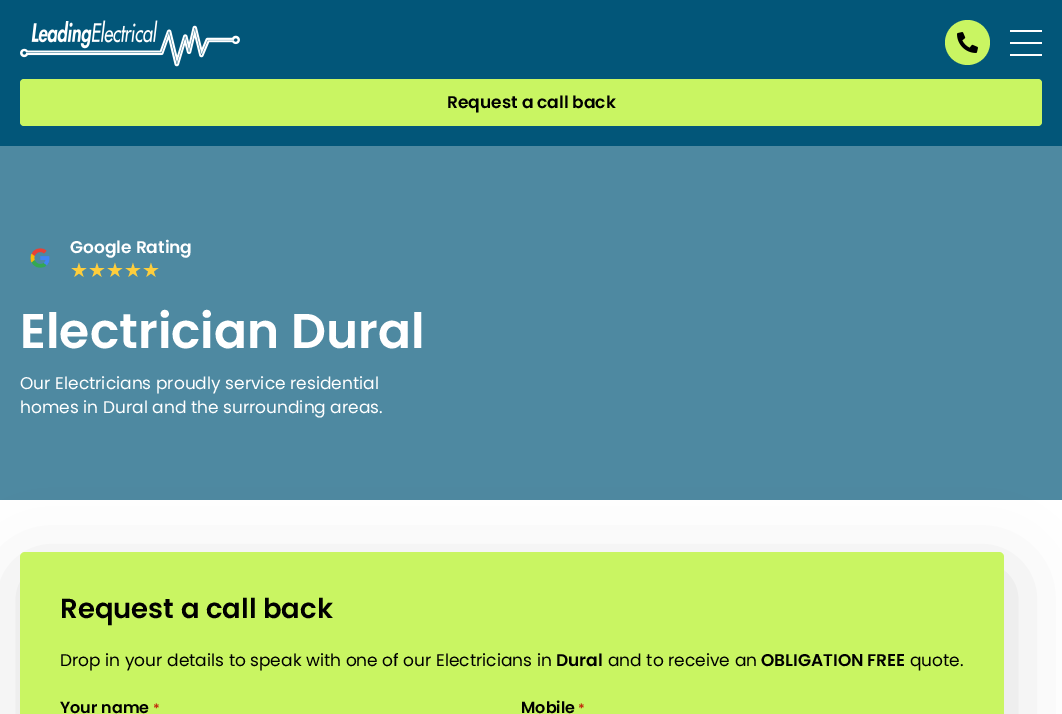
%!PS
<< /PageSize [1062 714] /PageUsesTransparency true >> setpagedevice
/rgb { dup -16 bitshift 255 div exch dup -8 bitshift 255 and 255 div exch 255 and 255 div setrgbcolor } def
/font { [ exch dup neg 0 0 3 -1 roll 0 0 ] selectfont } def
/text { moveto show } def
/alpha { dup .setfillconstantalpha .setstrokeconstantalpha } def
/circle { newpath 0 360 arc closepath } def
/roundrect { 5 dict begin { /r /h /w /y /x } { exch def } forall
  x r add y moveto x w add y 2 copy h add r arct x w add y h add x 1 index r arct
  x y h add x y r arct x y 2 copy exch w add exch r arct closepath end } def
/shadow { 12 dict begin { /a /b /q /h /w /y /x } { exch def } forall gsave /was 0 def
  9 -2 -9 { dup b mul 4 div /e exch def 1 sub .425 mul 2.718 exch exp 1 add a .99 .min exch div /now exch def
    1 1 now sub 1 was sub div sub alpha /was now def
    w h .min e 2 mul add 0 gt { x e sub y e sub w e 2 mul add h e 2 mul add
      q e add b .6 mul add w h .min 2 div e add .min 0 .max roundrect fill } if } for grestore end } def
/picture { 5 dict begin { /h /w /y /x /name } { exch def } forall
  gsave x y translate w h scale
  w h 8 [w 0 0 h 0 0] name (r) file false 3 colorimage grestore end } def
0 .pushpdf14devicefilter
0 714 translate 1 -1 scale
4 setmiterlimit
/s1 { /Poppins-SemiBold 17 font 16#000000 rgb } def
/s2 { /Poppins-SemiBold 17 font 16#FFFFFF rgb } def
/s3 { /DejaVuSans-Regular 20 font 16#FECE3C rgb } def
/s4 { /Poppins-SemiBold 48.75 font 16#FFFFFF rgb } def
/s5 { /Poppins-Regular 17 font 16#FFFFFF rgb } def
/s6 { /Poppins-SemiBold 27.5 font 16#000000 rgb } def
/s7 { /Poppins-Regular 17 font 16#000000 rgb } def
/s8 { /Poppins-SemiBold 16 font 16#000000 rgb } def
/s9 { /Poppins-SemiBold 13 font 16#C02B0A rgb } def
16#FFFFFF rgb
0 0 1062 714 rectfill
16#025679 rgb
0 0 1062 146 rectfill
(pic1.raw) 20 20 220 47 picture
16#C9F562 rgb
967.5 42.5 22.5 circle fill
(pic2.raw) 957 32 21 21 picture
16#FFFFFF rgb
1010 42 32 2 rectfill
1010 30 32 2 rectfill
1010 54 32 2 rectfill
16#C9F562 rgb
20 79 1022 47 4 roundrect fill
s1
(Request a call back) 447 108 text
16#4E89A1 rgb
0 146 1062 354 rectfill
(pic3.raw) 30 248 20 20 picture
s2
(Google Rating) 70 253 text
s3
(★★★★★) 70 277 text
s4
(Electrician Dural) 20 348 text
s5
(Our Electricians proudly service residential) 20 389 text
(homes in Dural and the surrounding areas.) 20 413 text
16#000000 rgb
25 572 984 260 5 37.5 0.14 shadow
16#C9F562 rgb
20 552 984 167 5 roundrect fill
s6
(Request a call back) 60 618 text
s7
(Drop in your details to speak with one of our Electricians in) 60 666 text
s1
(Dural) 556 666 text
s7
(and to receive an) 608 666 text
s1
(OBLIGATION FREE) 761 666 text
s7
(quote.) 910 666 text
s8
(Your name) 60 713 text
s9
(*) 153 713 text
s8
(Mobile) 521 713 text
s9
(*) 578 713 text
.poppdf14devicefilter showpage
